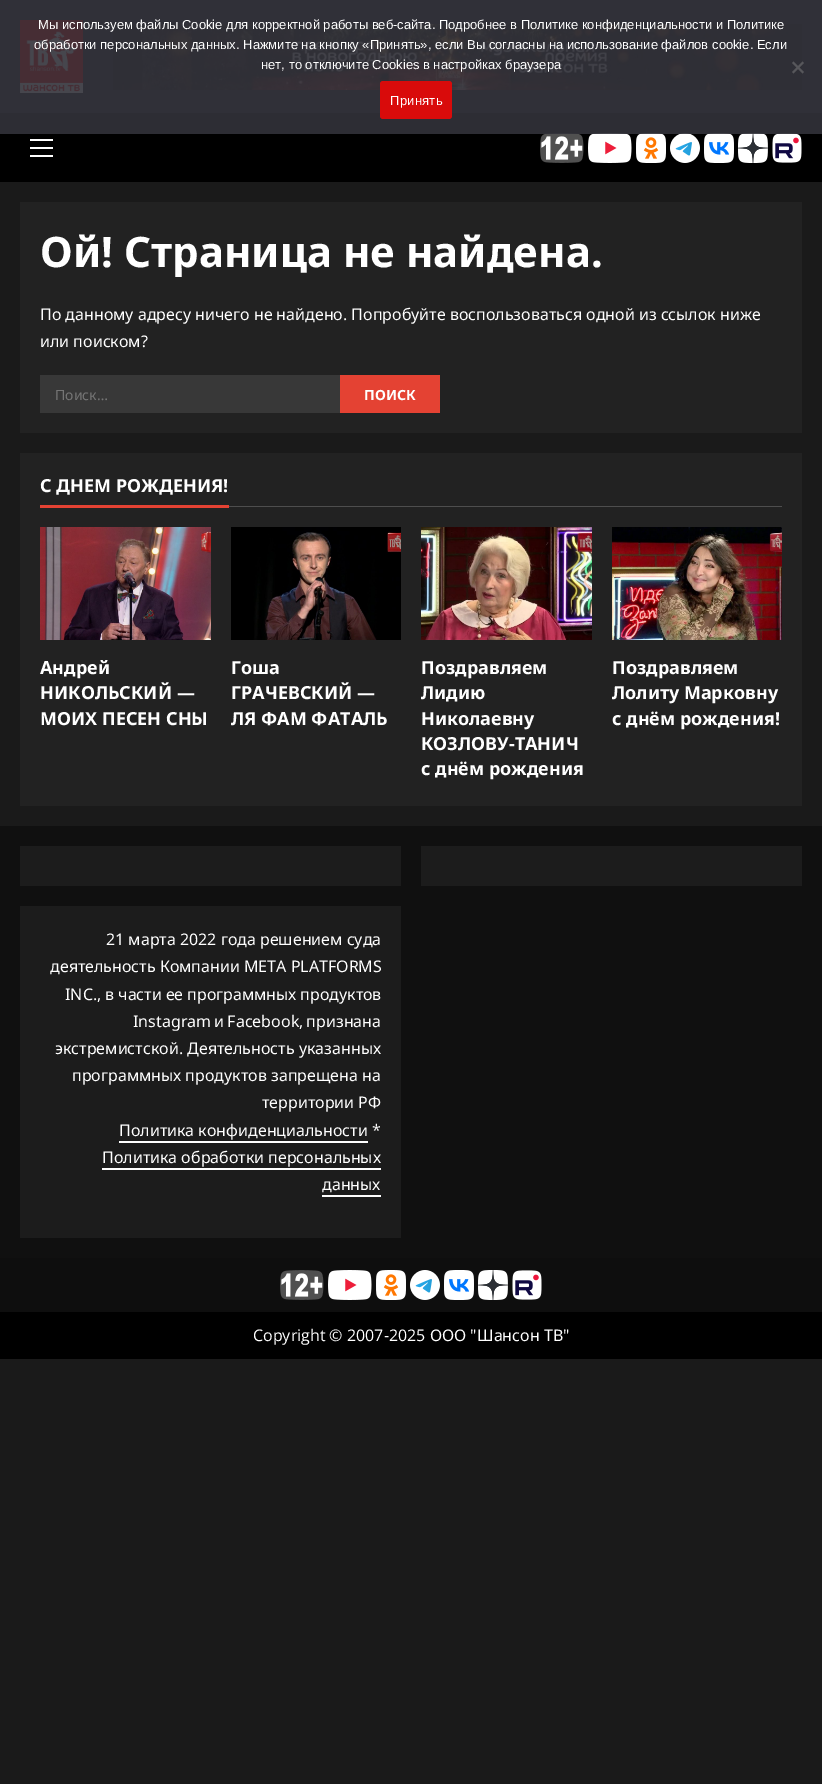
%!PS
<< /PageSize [822 1784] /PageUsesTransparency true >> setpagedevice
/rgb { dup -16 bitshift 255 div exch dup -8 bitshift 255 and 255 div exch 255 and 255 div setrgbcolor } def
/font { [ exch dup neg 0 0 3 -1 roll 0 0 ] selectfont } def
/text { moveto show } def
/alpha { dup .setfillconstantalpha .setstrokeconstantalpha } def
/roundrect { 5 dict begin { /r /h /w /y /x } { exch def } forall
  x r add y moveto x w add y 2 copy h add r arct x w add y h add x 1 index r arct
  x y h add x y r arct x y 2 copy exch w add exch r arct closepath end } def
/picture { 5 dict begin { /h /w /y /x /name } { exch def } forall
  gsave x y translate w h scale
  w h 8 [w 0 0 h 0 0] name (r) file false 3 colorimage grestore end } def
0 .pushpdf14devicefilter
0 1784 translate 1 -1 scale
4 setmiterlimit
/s1 { /LiberationSans-Regular 13 font 16#FFFFFF rgb } def
/s2 { /NotoSans-Bold 42 font 16#FFFFFF rgb } def
/s3 { /NotoSans-Regular 16 font 16#FFFFFF rgb } def
/s4 { /NotoSans-Regular 14 font 16#757575 rgb } def
/s5 { /NotoSans-Bold 14 font 16#FFFFFF rgb } def
/s6 { /NotoSans-Bold 18 font 16#FFFFFF rgb } def
/s7 { /OpenSans-Regular 16 font 16#FFFFFF rgb } def
16#1A1A1A rgb
0 0 822 1784 rectfill
16#222222 rgb
0 0 822 113 rectfill
(pic1.raw) 20 20 63 73 picture
(pic2.raw) 113 24 689 66 picture
16#000000 rgb
0 113 822 69 rectfill
(pic3.raw) 540 133 44 30 picture
(pic4.raw) 588 133 44 30 picture
(pic5.raw) 636 133 30 30 picture
(pic6.raw) 670 133 30 30 picture
(pic7.raw) 704 133 30 30 picture
(pic8.raw) 738 133 30 30 picture
(pic9.raw) 772 133 30 30 picture
0.9 alpha
16#32323A rgb
0 0 822 134 rectfill
1 alpha
s1
(Мы используем файлы Сookie для корректной работы веб-сайта. Подробнее в Политике конфиденциальности и Политике) 38 29 text
(обработки персональных данных. Нажмите на кнопку «Принять», если Вы согласны на использование файлов cookie. Если) 34 49 text
(нет, то отключите Cookies в настройках браузера) 261 69 text
16#57575B rgb
802.5 61.5 moveto 804 63 lineto 793.5 73.5 lineto 792 72 lineto closepath fill
792 63 moveto 793.5 61.5 lineto 804 72 lineto 802.5 73.5 lineto closepath fill
16#D90B0B rgb
380 81 72 38 3 roundrect fill
16#FFFFFF rgb
390 105 moveto 0.25 0 (Принять) ashow
30 147 23 2 rectfill
30 139 23 2 rectfill
30 155 23 2 rectfill
16#222222 rgb
20 202 782 231 rectfill
s2
(Ой! Страница не найдена.) 40 267 text
s3
(По данному адресу ничего не найдено. Попробуйте воспользоваться одной из ссылок ниже) 40 320 text
(или поиском?) 40 347 text
16#383838 rgb
40 375 300 38 rectfill
s4
(Поиск…) 55 400 text
16#E44233 rgb
340 375 100 38 rectfill
s5
(ПОИСК) 364 400 text
16#222222 rgb
20 453 782 353 rectfill
16#4E4E4E rgb
229 506 553 1 rectfill
s6
(С ДНЕМ РОЖДЕНИЯ!) 40 492 text
16#E44233 rgb
40 505 189 3 rectfill
(pic10.raw) 40 527 171 113 picture
s6
(Андрей) 40 674 text
(НИКОЛЬСКИЙ —) 40 699 text
(МОИХ ПЕСЕН СНЫ) 40 725 text
(pic11.raw) 231 527 170 113 picture
(Гоша) 231 674 text
(ГРАЧЕВСКИЙ —) 231 699 text
(ЛЯ ФАМ ФАТАЛЬ) 231 725 text
(pic12.raw) 421 527 171 113 picture
(Поздравляем) 421 674 text
(Лидию) 421 699 text
(Николаевну) 421 725 text
(КОЗЛОВУ-ТАНИЧ) 421 750 text
(с днём рождения) 421 775 text
(pic13.raw) 612 527 170 113 picture
(Поздравляем) 612 674 text
(Лолиту Марковну) 612 699 text
(с днём рождения!) 612 725 text
16#101010 rgb
0 826 822 432 rectfill
16#1C1C1C rgb
20 846 381 40 rectfill
421 846 381 40 rectfill
20 906 381 332 rectfill
s3
(21 марта 2022 года решением суда) 106 945 text
(деятельность Компании META PLATFORMS) 50 972 text
65 1000 moveto -0.25 0 32 (INC., в части ее программных продуктов) widthshow
133 1027 moveto -1 0 32 (Instagram и Facebook, признана) widthshow
(экстремистской. Деятельность указанных) 55 1054 text
(программных продуктов запрещена на) 72 1081 text
(территории РФ) 262 1108 text
(Политика конфиденциальности) 119 1136 text
119 1141 249 2 rectfill
s7
(*) 372 1136 text
s3
(Политика обработки персональных) 102 1163 text
102 1168 279 2 rectfill
(данных) 322 1190 text
322 1195 59 2 rectfill
16#0E0E0E rgb
0 1258 822 54 rectfill
(pic14.raw) 280 1270 44 30 picture
(pic15.raw) 328 1270 44 30 picture
(pic16.raw) 376 1270 30 30 picture
(pic17.raw) 410 1270 30 30 picture
(pic18.raw) 444 1270 30 30 picture
(pic19.raw) 478 1270 30 30 picture
(pic20.raw) 512 1270 30 30 picture
16#000000 rgb
0 1312 822 47 rectfill
s7
(Copyright © 2007-2025) 253 1341 text
s3
(ООО) 430 1341 text
s7
(") 470 1341 text
s3
(Шансон ТВ) 477 1341 text
s7
(") 563 1341 text
.poppdf14devicefilter showpage
